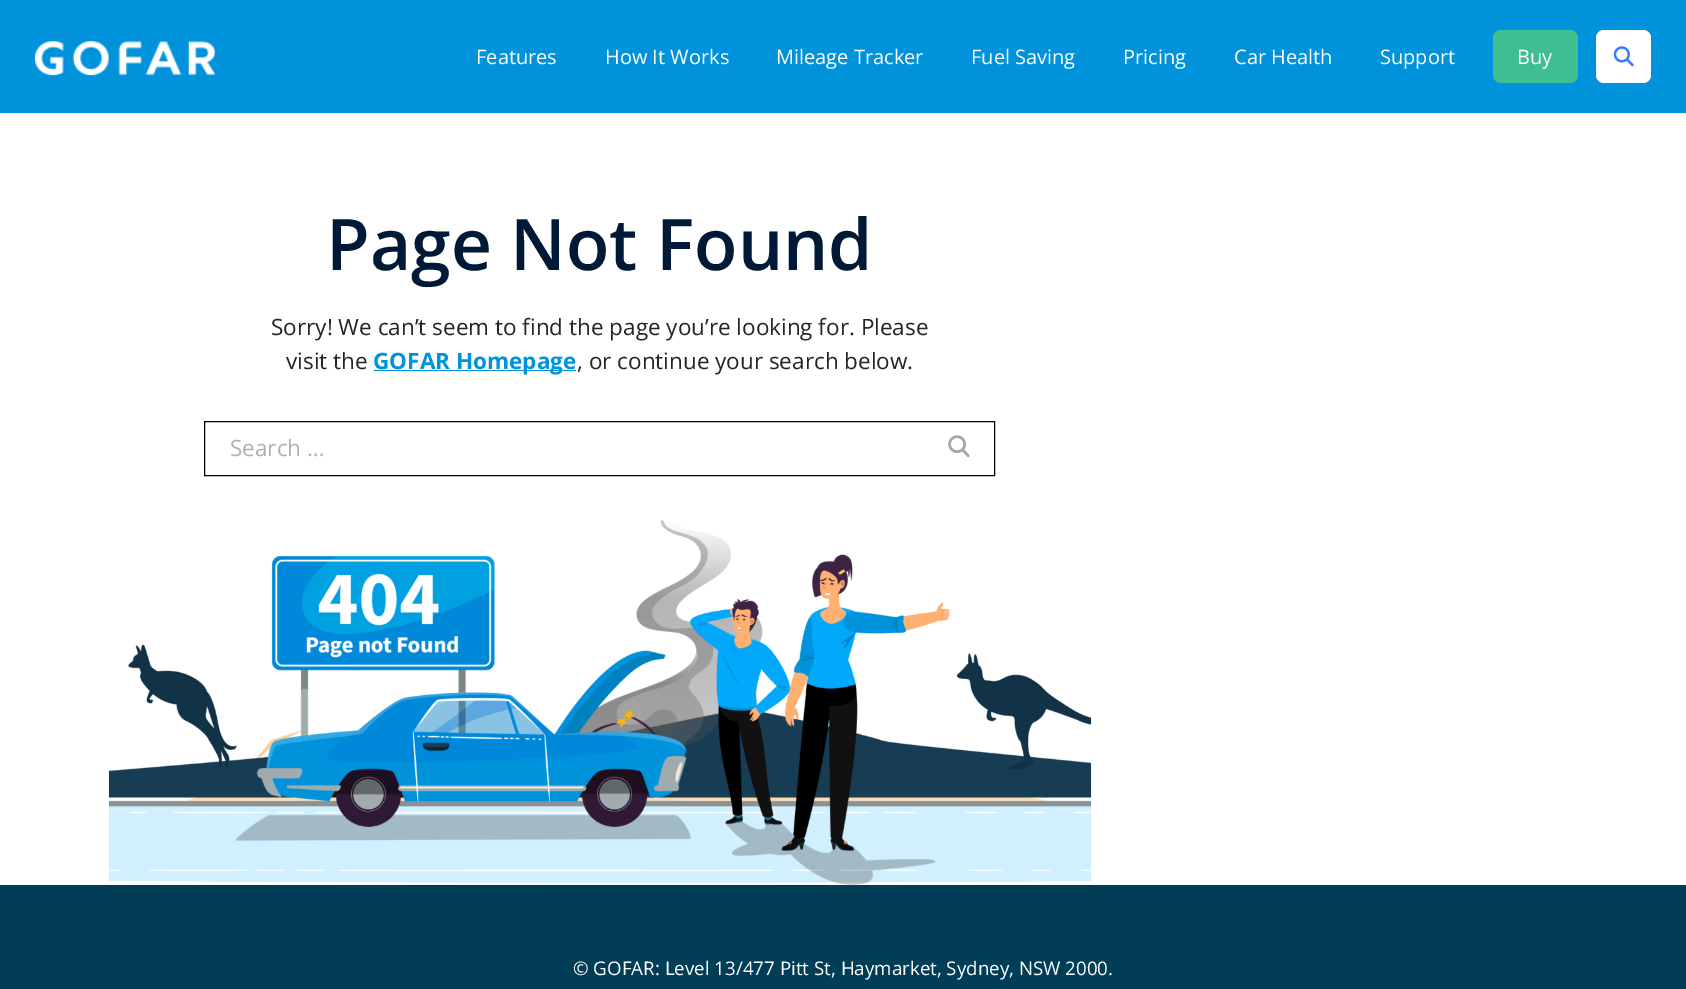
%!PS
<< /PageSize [1686 989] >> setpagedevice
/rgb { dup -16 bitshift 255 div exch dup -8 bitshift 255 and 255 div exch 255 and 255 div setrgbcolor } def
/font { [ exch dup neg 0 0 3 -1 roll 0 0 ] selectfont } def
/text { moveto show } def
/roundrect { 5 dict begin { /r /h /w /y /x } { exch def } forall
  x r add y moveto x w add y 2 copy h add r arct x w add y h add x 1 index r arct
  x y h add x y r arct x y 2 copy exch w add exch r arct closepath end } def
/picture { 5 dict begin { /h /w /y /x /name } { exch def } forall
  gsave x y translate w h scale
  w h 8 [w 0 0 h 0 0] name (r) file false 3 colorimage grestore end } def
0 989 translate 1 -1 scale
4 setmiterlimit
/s1 { /OpenSans-Regular 20 font 16#FFFFFF rgb } def
/s2 { /OpenSans-SemiBold 71.25 font 16#001937 rgb } def
/s3 { /OpenSans-Regular 22.5 font 16#212529 rgb } def
/s4 { /OpenSans-Bold 22.5 font 16#0093DC rgb } def
/s5 { /OpenSans-Regular 22.5 font 16#B0B0B0 rgb } def
/s6 { /OpenSans-Regular 18.75 font 16#FFFFFF rgb } def
16#FFFFFF rgb
0 0 1686 989 rectfill
16#0093DC rgb
0 0 1686 113 rectfill
(pic1.raw) 35 41 180 35 picture
s1
(Features) 476 64 text
(How It Works) 605 64 text
(Mileage Tracker) 776 64 text
(Fuel Saving) 971 64 text
(Pricing) 1123 64 text
(Car Health) 1234 64 text
(Support) 1380 64 text
16#3FBE92 rgb
1493 30 85 53 8 roundrect fill
s1
(Buy) 1517 64 text
1596 30 55 53 8 roundrect fill
(pic2.raw) 1613 46 21 21 picture
s2
(Page Not Found) 326 270 text
s3
(Sorry! We can’t seem to find the page you’re looking for. Please) 271 335 text
(visit the) 286 369 text
16#0093DC rgb
374 370 202 1 rectfill
s4
(GOFAR Homepage) 373 369 text
s3
(, or continue your search below.) 577 369 text
16#000000 rgb
204.5 421.5 790 54 rectstroke
s5
(Search …) 230 456 text
(pic3.raw) 948 435 22 23 picture
(pic4.raw) 108 520 984 365 picture
16#003E57 rgb
0 885 1686 104 rectfill
s6
(© GOFAR: Level 13/477 Pitt St, Haymarket, Sydney, NSW 2000.) 573 975 text
showpage
